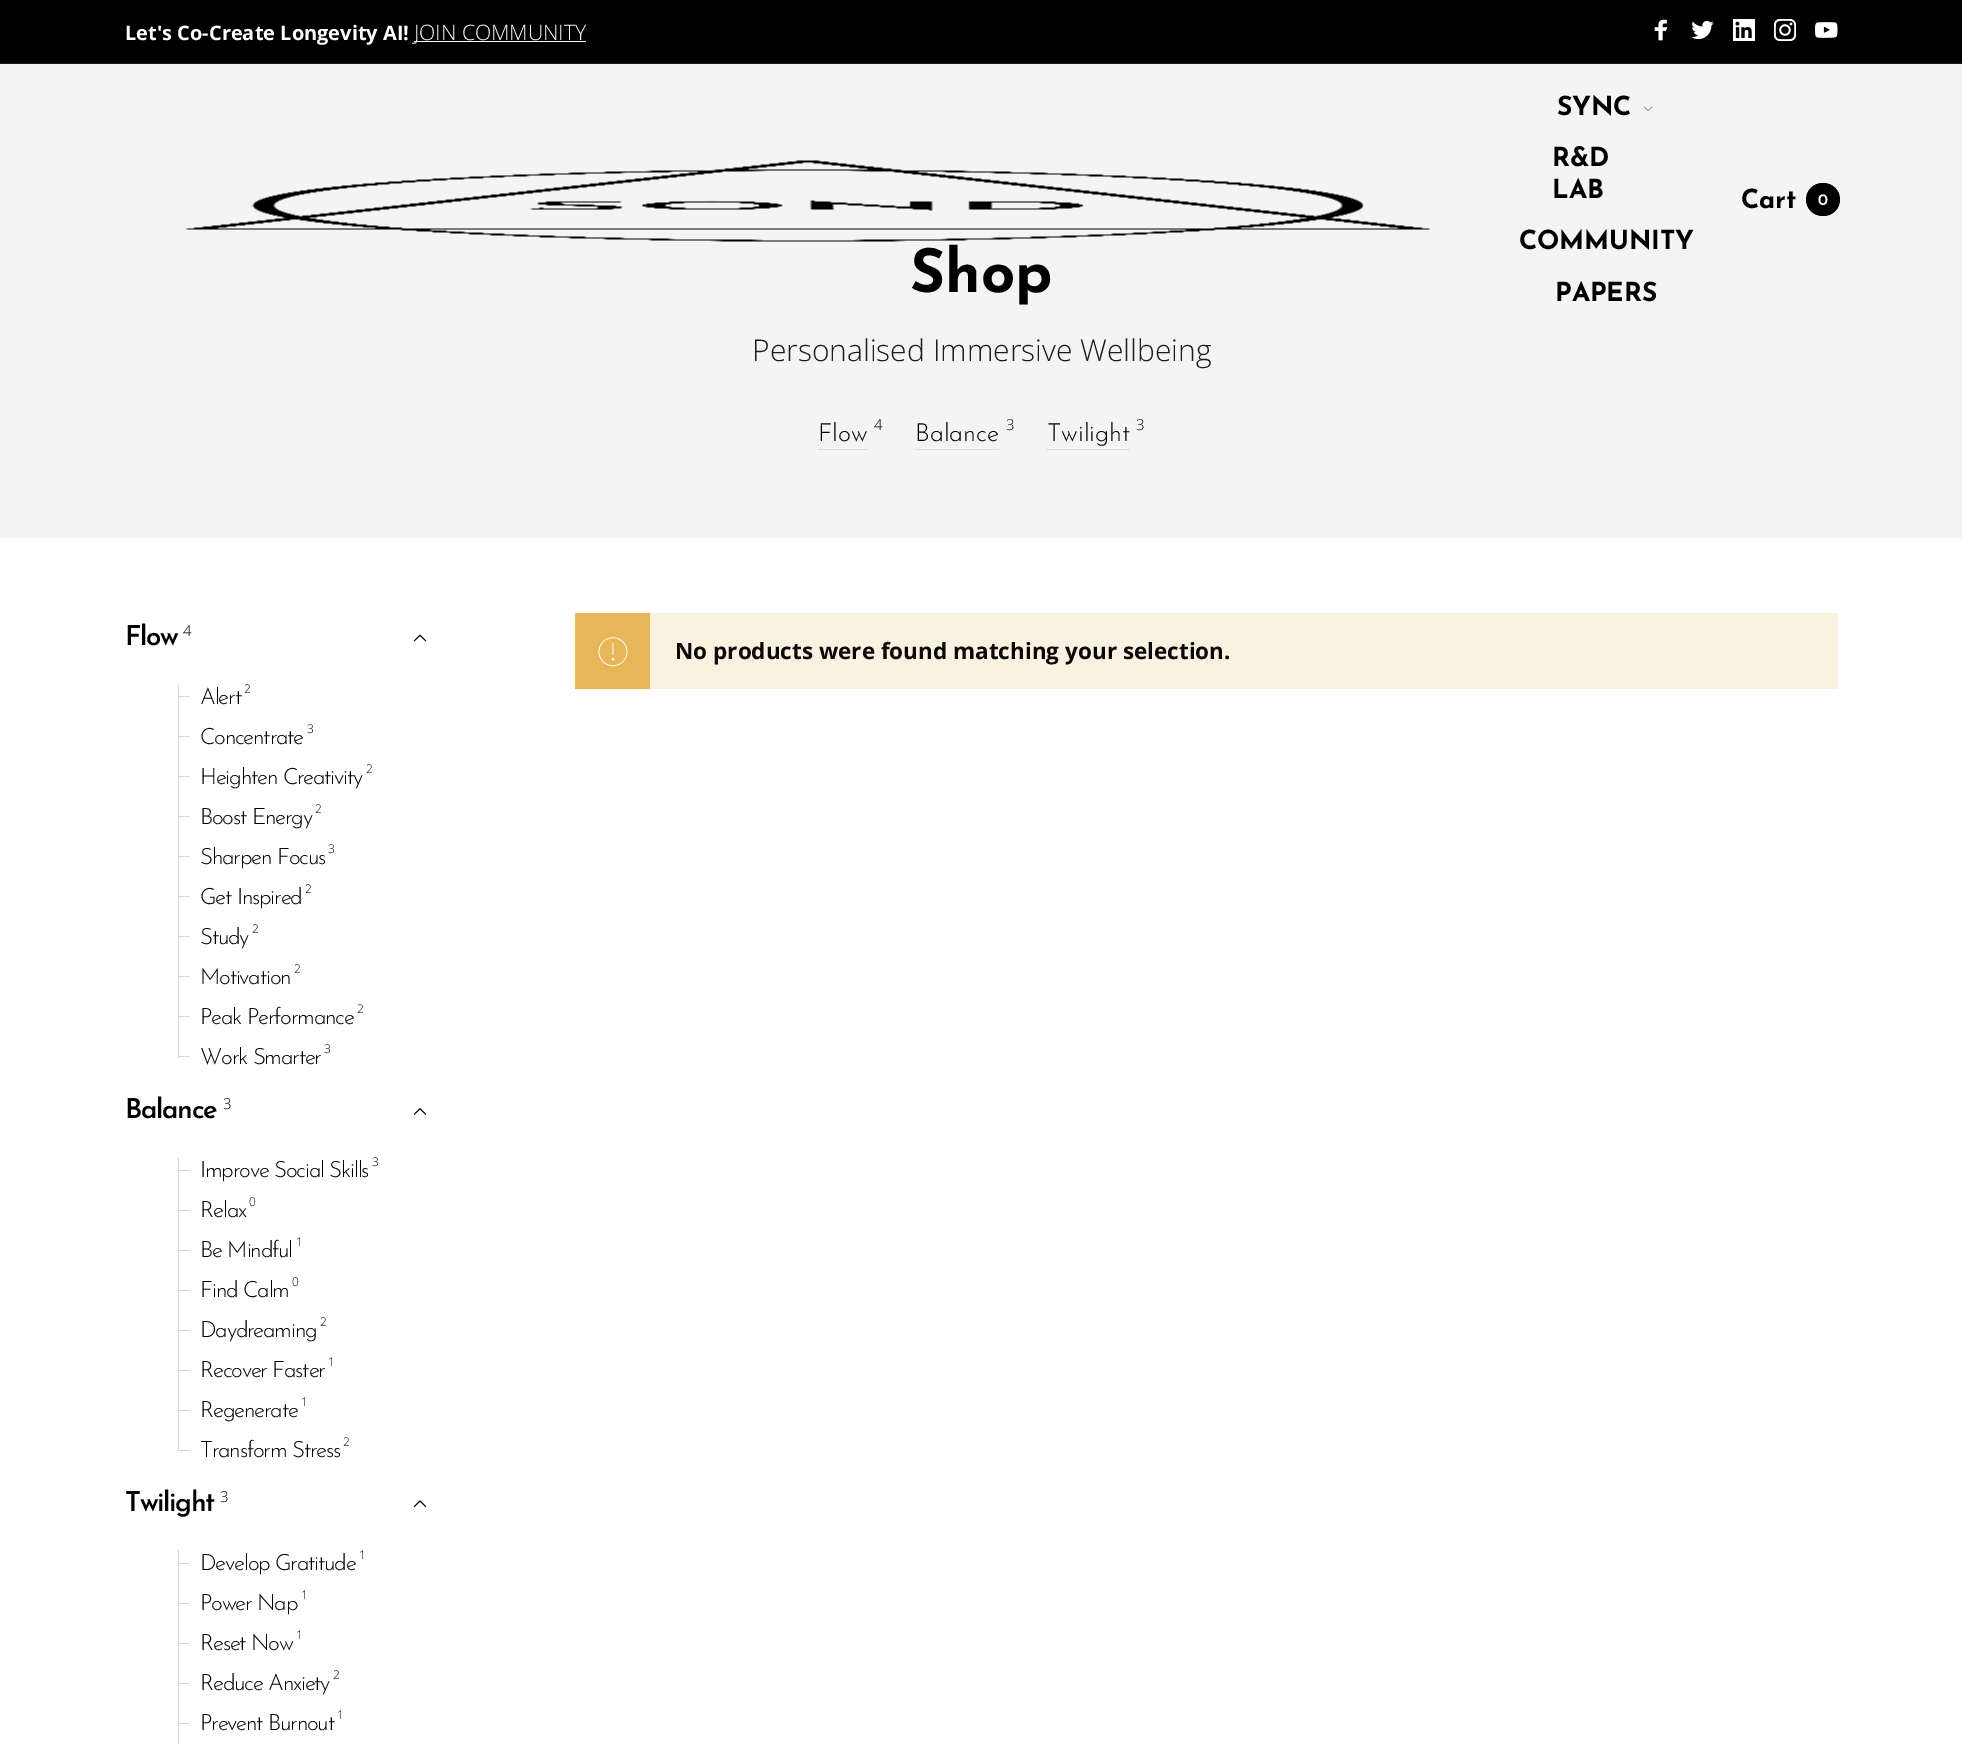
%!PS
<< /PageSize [1962 1744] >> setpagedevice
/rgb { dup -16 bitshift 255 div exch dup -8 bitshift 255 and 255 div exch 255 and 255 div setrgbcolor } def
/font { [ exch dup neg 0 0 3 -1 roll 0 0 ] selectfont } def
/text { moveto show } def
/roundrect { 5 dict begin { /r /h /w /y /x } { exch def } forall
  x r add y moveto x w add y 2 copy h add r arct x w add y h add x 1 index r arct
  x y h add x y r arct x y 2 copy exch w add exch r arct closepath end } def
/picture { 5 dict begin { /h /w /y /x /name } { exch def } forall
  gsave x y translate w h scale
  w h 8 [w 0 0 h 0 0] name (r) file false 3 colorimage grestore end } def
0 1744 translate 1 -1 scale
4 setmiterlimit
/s1 { /OpenSans-Bold 20 font 16#FFFFFF rgb } def
/s2 { /OpenSans-Light 21.25 font 16#FFFFFF rgb } def
/s3 { /JosefinSans-SemiBold 16 font 16#FFFFFF rgb } def
/s4 { /JosefinSans-Bold 60 font 16#000000 rgb } def
/s5 { /OpenSans-Light 30 font 16#1C1C1C rgb } def
/s6 { /JosefinSans-Light 25 font 16#000000 rgb } def
/s7 { /OpenSans-Light 15 font 16#000000 rgb } def
/s8 { /OpenSans-Light 12 font 16#000000 rgb } def
/s9 { /OpenSans-Bold 22.5 font 16#0A0A0A rgb } def
16#FFFFFF rgb
0 0 1962 1744 rectfill
16#000000 rgb
0 0 1962 63 rectfill
16#1A1A1A rgb
0 63 1962 1 rectfill
s1
(Let's Co-Create Longevity AI!) 125 40 text
414 41 172 1 rectfill
s2
(JOIN COMMUNITY) 414 40 text
(pic1.raw) 1654 19 14 22 picture
(pic2.raw) 1691 20 23 20 picture
(pic3.raw) 1733 19 22 22 picture
(pic4.raw) 1774 19 22 22 picture
(pic5.raw) 1815 22 23 16 picture
16#F4F4F4 rgb
0 64 1962 474 rectfill
(pic6.raw) 185 160 1246 82 picture
/JosefinSans-Bold 26.25 font
16#000000 rgb
1557 115 moveto -0.1 0 (SYNC) ashow
(pic7.raw) 1643 106 10 5 picture
1552 166 moveto -0.1 0 (R&D) ashow
1552 198 moveto -0.1 0 (LAB) ashow
1519 249 moveto -0.1 0 (COMMUNITY) ashow
1555 301 moveto -0.1 0 (PAPERS) ashow
1741 208 moveto -0.1 0 (Cart) ashow
1806 183 34 33 16.5 roundrect fill
s3
(0) 1818 205 text
s4
(Shop) 910 292 text
s5
(Personalised Immersive Wellbeing) 752 361 text
16#DCDCDC rgb
818 449 50 1 rectfill
s6
(Flow) 818 441 text
s7
(4) 874 430 text
16#DCDCDC rgb
915 449 84 1 rectfill
s6
(Balance) 915 441 text
s7
(3) 1006 430 text
16#DCDCDC rgb
1046 449 84 1 rectfill
s6
(Twilight) 1047 441 text
s7
(3) 1136 430 text
/JosefinSans-SemiBold 27.5 font
125 645 moveto -1.25 0 (Flow) ashow
s7
(4) 183 636 text
(pic8.raw) 413 634 14 8 picture
16#D6D6D6 rgb
178 684 1 374 rectfill
/JosefinSans-Light 22.5 font
16#000000 rgb
200 704 moveto -1.25 0 (Alert) ashow
s8
(2) 244 693 text
16#D6D6D6 rgb
178 696 12 1 rectfill
178 736 12 1 rectfill
/JosefinSans-Light 22.5 font
16#000000 rgb
200 744 moveto -1.25 0 (Concentrate) ashow
s8
(3) 307 733 text
16#D6D6D6 rgb
178 776 12 1 rectfill
/JosefinSans-Light 22.5 font
16#000000 rgb
200 784 moveto -1.25 0 (Heighten Creativity) ashow
s8
(2) 366 773 text
16#D6D6D6 rgb
178 816 12 1 rectfill
/JosefinSans-Light 22.5 font
16#000000 rgb
200 824 moveto -1.25 0 (Boost Energy) ashow
s8
(2) 315 813 text
16#D6D6D6 rgb
178 856 12 1 rectfill
/JosefinSans-Light 22.5 font
16#000000 rgb
200 864 moveto -1.25 0 (Sharpen Focus) ashow
s8
(3) 328 853 text
16#D6D6D6 rgb
178 896 12 1 rectfill
/JosefinSans-Light 22.5 font
16#000000 rgb
200 904 moveto -1.25 0 (Get Inspired) ashow
s8
(2) 305 893 text
16#D6D6D6 rgb
178 936 12 1 rectfill
/JosefinSans-Light 22.5 font
16#000000 rgb
200 944 moveto -1.25 0 (Study) ashow
s8
(2) 252 933 text
16#D6D6D6 rgb
178 976 12 1 rectfill
/JosefinSans-Light 22.5 font
16#000000 rgb
200 984 moveto -1.25 0 (Motivation) ashow
s8
(2) 294 973 text
16#D6D6D6 rgb
178 1016 12 1 rectfill
/JosefinSans-Light 22.5 font
16#000000 rgb
200 1024 moveto -1.25 0 (Peak Performance) ashow
s8
(2) 357 1013 text
16#D6D6D6 rgb
179 1056 11 1 rectfill
/JosefinSans-Light 22.5 font
16#000000 rgb
200 1064 moveto -1.25 0 (Work Smarter) ashow
s8
(3) 324 1053 text
/JosefinSans-SemiBold 27.5 font
125 1118 moveto -1.25 0 (Balance) ashow
s7
(3) 223 1109 text
(pic9.raw) 413 1108 14 7 picture
16#D6D6D6 rgb
178 1158 1 293 rectfill
/JosefinSans-Light 22.5 font
16#000000 rgb
200 1177 moveto -1.25 0 (Improve Social Skills) ashow
s8
(3) 372 1166 text
16#D6D6D6 rgb
178 1170 12 1 rectfill
178 1210 12 1 rectfill
/JosefinSans-Light 22.5 font
16#000000 rgb
200 1217 moveto -1.25 0 (Relax) ashow
s8
(0) 249 1206 text
16#D6D6D6 rgb
178 1250 12 1 rectfill
/JosefinSans-Light 22.5 font
16#000000 rgb
200 1257 moveto -1.25 0 (Be Mindful) ashow
s8
(1) 296 1246 text
16#D6D6D6 rgb
178 1290 12 1 rectfill
/JosefinSans-Light 22.5 font
16#000000 rgb
200 1297 moveto -1.25 0 (Find Calm) ashow
s8
(0) 292 1286 text
16#D6D6D6 rgb
178 1330 12 1 rectfill
/JosefinSans-Light 22.5 font
16#000000 rgb
200 1337 moveto -1.25 0 (Daydreaming) ashow
s8
(2) 320 1326 text
16#D6D6D6 rgb
178 1370 12 1 rectfill
/JosefinSans-Light 22.5 font
16#000000 rgb
200 1377 moveto -1.25 0 (Recover Faster) ashow
s8
(1) 328 1366 text
16#D6D6D6 rgb
178 1410 12 1 rectfill
/JosefinSans-Light 22.5 font
16#000000 rgb
200 1417 moveto -1.25 0 (Regenerate) ashow
s8
(1) 301 1406 text
16#D6D6D6 rgb
179 1450 11 1 rectfill
/JosefinSans-Light 22.5 font
16#000000 rgb
200 1457 moveto -1.25 0 (Transform Stress) ashow
s8
(2) 343 1446 text
/JosefinSans-SemiBold 27.5 font
125 1511 moveto -1.25 0 (Twilight) ashow
s7
(3) 220 1502 text
(pic10.raw) 413 1500 14 8 picture
16#D6D6D6 rgb
178 1550 1 194 rectfill
/JosefinSans-Light 22.5 font
16#000000 rgb
200 1570 moveto -1.25 0 (Develop Gratitude) ashow
s8
(1) 359 1559 text
16#D6D6D6 rgb
178 1563 12 1 rectfill
178 1603 12 1 rectfill
/JosefinSans-Light 22.5 font
16#000000 rgb
200 1610 moveto -1.25 0 (Power Nap) ashow
s8
(1) 301 1599 text
16#D6D6D6 rgb
178 1643 12 1 rectfill
/JosefinSans-Light 22.5 font
16#000000 rgb
200 1650 moveto -1.25 0 (Reset Now) ashow
s8
(1) 296 1639 text
16#D6D6D6 rgb
178 1683 12 1 rectfill
/JosefinSans-Light 22.5 font
16#000000 rgb
200 1690 moveto -1.25 0 (Reduce Anxiety) ashow
s8
(2) 333 1679 text
16#D6D6D6 rgb
178 1723 12 1 rectfill
/JosefinSans-Light 22.5 font
16#000000 rgb
200 1730 moveto -1.25 0 (Prevent Burnout) ashow
s8
(1) 337 1719 text
16#FAF1E1 rgb
650 613 1188 76 rectfill
16#E6B659 rgb
575 613 75 76 rectfill
(pic11.raw) 598 637 30 30 picture
s9
(No products were found matching your selection.) 675 659 text
showpage
